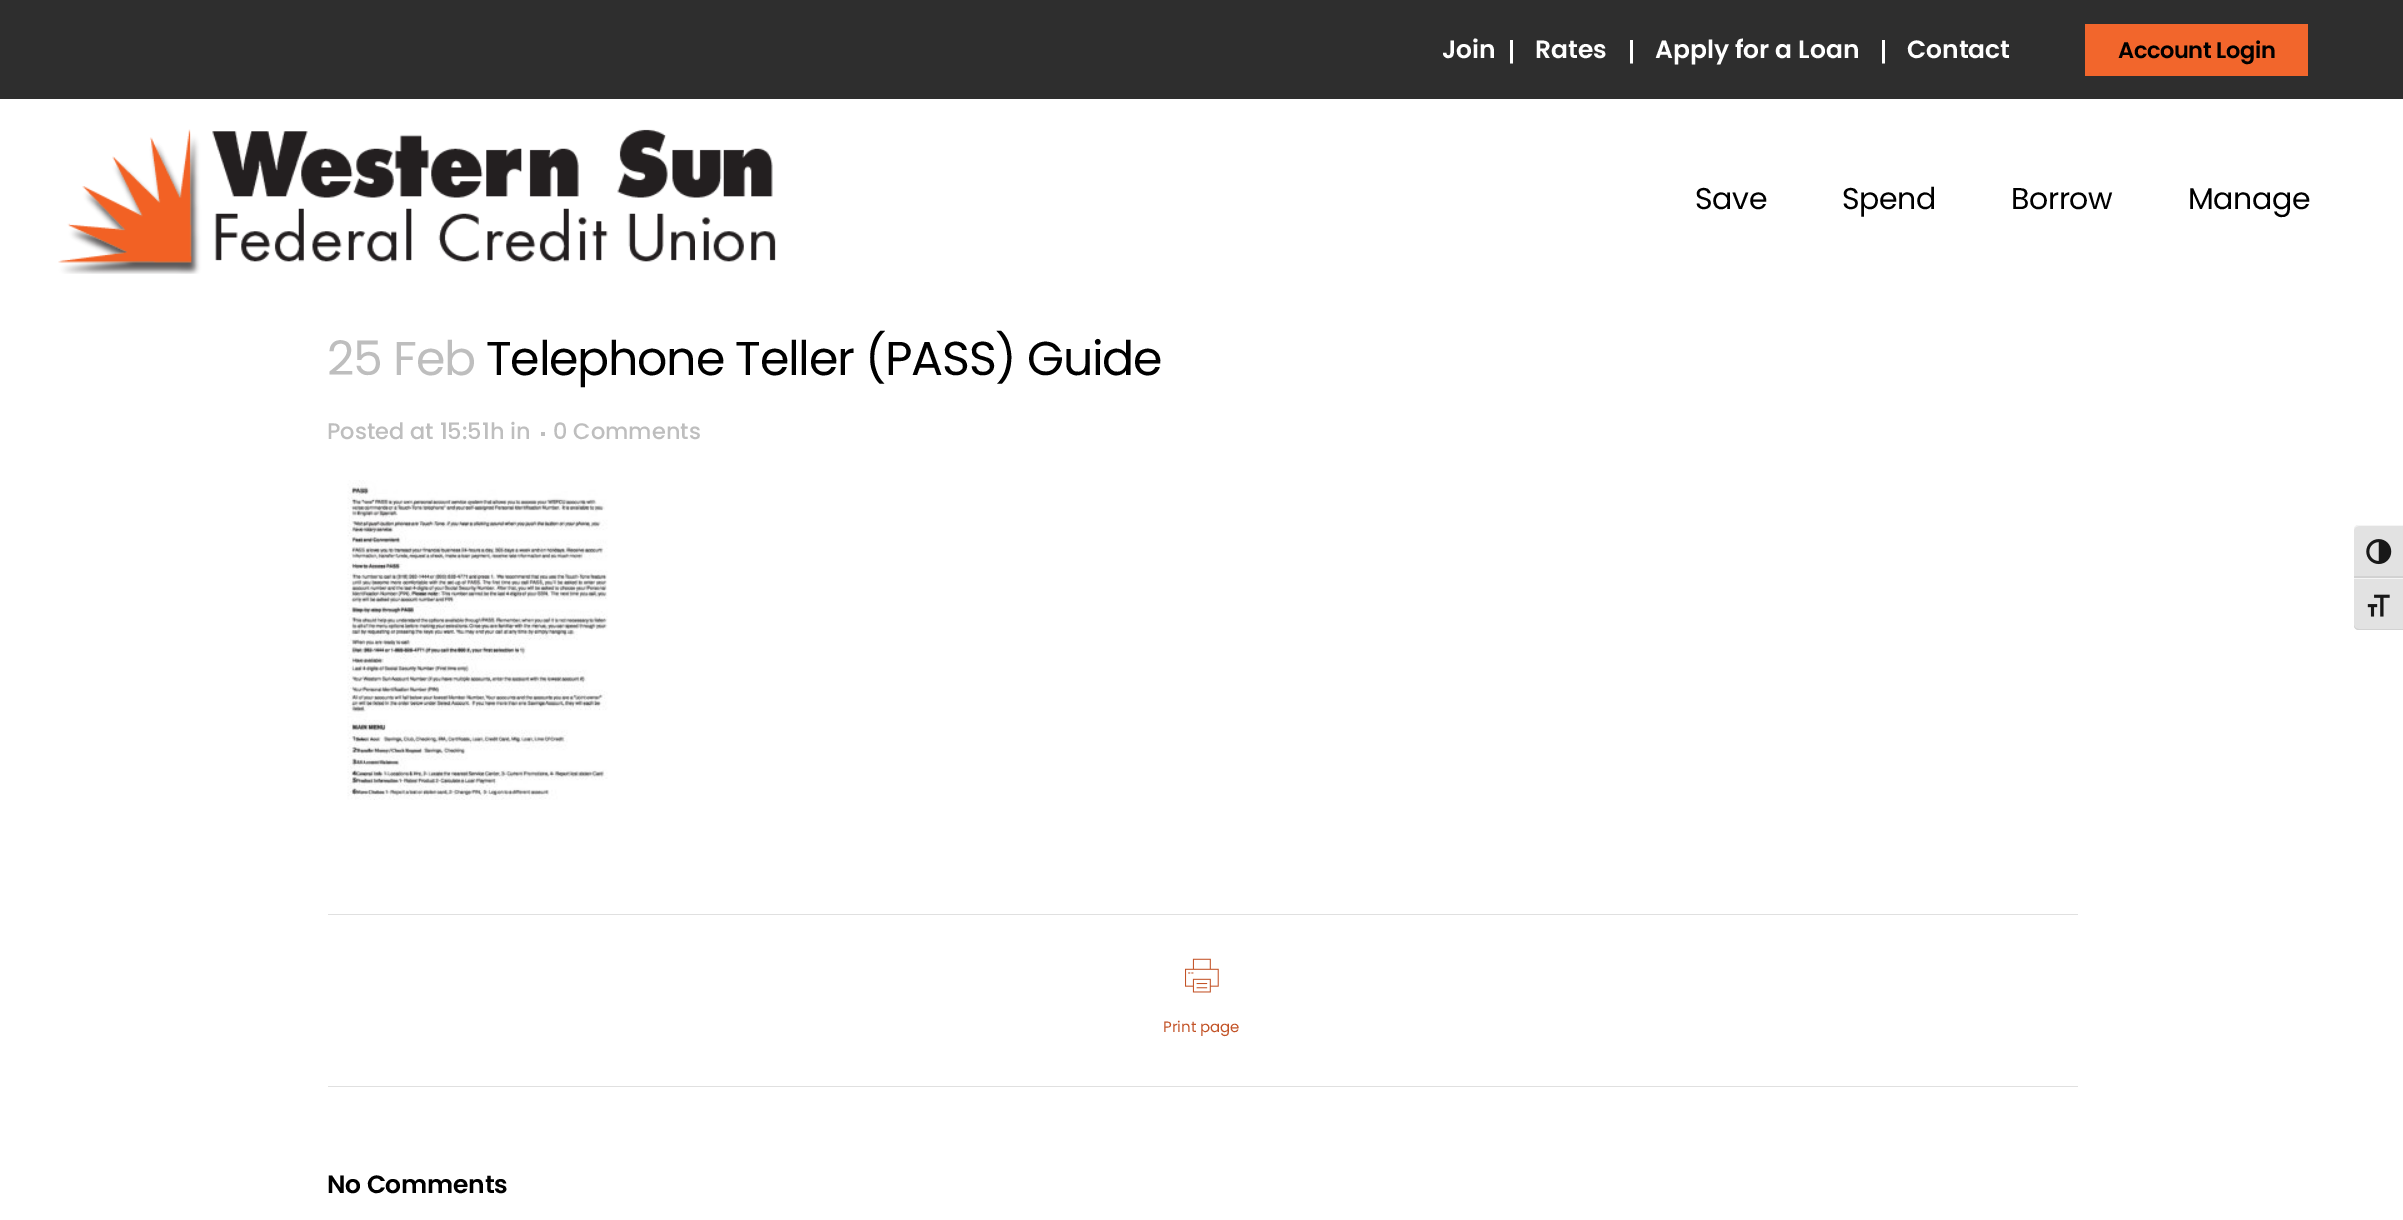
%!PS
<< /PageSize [2403 1220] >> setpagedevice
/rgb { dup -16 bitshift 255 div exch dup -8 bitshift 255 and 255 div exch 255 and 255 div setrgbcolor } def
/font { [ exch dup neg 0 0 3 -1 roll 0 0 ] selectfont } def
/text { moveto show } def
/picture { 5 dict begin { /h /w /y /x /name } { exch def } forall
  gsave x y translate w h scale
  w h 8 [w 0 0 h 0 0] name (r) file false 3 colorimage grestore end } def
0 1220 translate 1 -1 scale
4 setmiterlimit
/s1 { /Poppins-SemiBold 25 font 16#FFFFFF rgb } def
/s2 { /LiberationSans-Bold 25 font 16#FFFFFF rgb } def
/s3 { /Poppins-Medium 22.5 font 16#BEBEBE rgb } def
/s4 { /Poppins-Regular 15 font 16#C35327 rgb } def
16#FFFFFF rgb
0 0 2403 1220 rectfill
16#2E2E2E rgb
0 0 2403 99 rectfill
s1
(Join) 1442 58 text
s2
(|) 1508 58 text
s1
(Rates) 1535 58 text
s2
(|) 1628 58 text
s1
(Apply for a Loan) 1655 58 text
s2
(|) 1880 58 text
s1
(Contact) 1907 58 text
16#F2662C rgb
2085 24 223 52 rectfill
/Poppins-SemiBold 22.5 font
16#000000 rgb
2118 58 moveto -0.4 0 (Account Login) ashow
(pic1.raw) 58 129 718 145 picture
/Poppins-Regular 30 font
1695 209 moveto -0.4 0 (Save) ashow
1842 209 moveto -0.4 0 (Spend) ashow
2011 209 moveto -0.4 0 (Borrow) ashow
2188 209 moveto -0.4 0 (Manage) ashow
/Poppins-Regular 47.5 font
16#BEBEBE rgb
327 375 moveto -1.25 0 (25 Feb) ashow
16#000000 rgb
486 375 moveto -1.25 0 (Telephone Teller \(PASS\) Guide) ashow
s3
(Posted at 15:51h in) 327 439 text
541 432 4 4 rectfill
(0 Comments) 553 439 text
(pic2.raw) 347 480 261 320 picture
16#E0E0E0 rgb
328 914 1750 1 rectfill
328 1086 1750 1 rectfill
(pic3.raw) 1185 958 34 35 picture
s4
(Print page) 1163 1032 text
/Poppins-SemiBold 25 font
16#000000 rgb
327 1193 moveto -0.25 0 (No Comments) ashow
16#E2E2E2 rgb
2359 525 moveto 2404 525 lineto 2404 578 lineto 2354 578 lineto 2354 530 lineto 2354 527 2356 525 2359 525 curveto closepath fill
16#F5F5F5 rgb
2359 525 moveto 2356 525 2354 527 2354 530 curveto 2354 528 2356 526 2359 526 curveto 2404 526 lineto 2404 525 lineto closepath fill
16#D2D2D2 rgb
2354 576 49 2 rectfill
(pic4.raw) 2366 539 26 26 picture
16#E2E2E2 rgb
2354 578 moveto 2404 578 lineto 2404 630 lineto 2359 630 lineto 2356 630 2354 628 2354 625 curveto closepath fill
16#F5F5F5 rgb
2354 578 49 1 rectfill
16#D2D2D2 rgb
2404 630 moveto 2359 630 lineto 2356 630 2354 628 2354 625 curveto 2354 627 2356 629 2359 629 curveto 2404 629 lineto closepath fill
(pic5.raw) 2367 594 23 23 picture
showpage
